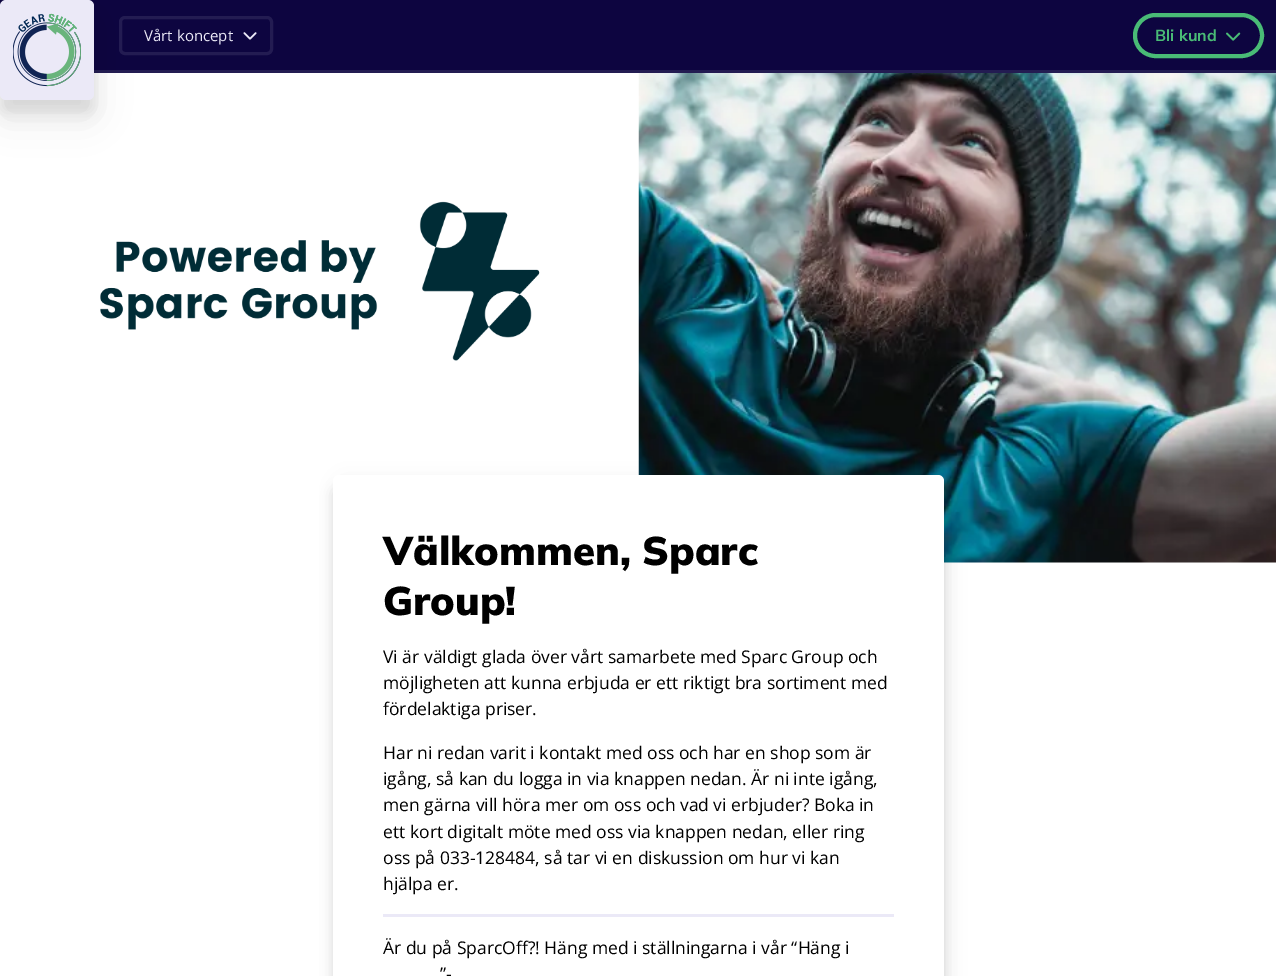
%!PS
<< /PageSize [1276 976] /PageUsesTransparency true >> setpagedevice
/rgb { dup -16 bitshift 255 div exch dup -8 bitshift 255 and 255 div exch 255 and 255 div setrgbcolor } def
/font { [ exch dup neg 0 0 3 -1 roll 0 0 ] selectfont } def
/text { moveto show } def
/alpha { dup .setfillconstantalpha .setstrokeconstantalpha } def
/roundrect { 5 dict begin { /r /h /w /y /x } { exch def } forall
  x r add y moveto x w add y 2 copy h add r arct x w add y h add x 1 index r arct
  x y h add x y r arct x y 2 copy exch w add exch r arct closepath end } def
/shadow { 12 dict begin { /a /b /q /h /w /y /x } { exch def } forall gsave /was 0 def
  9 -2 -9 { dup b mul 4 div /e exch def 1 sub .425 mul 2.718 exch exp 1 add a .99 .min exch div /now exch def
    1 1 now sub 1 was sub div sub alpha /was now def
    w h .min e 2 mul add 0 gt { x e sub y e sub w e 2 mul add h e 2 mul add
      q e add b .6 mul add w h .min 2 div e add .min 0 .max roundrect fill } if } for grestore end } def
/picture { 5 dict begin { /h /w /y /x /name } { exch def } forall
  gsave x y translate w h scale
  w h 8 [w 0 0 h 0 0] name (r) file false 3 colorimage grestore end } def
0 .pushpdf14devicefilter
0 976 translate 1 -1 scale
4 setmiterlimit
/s1 { /OpenSans-Regular 15 font 16#EBE9F7 rgb } def
/s2 { /Mulish-Bold 16 font 16#49BB76 rgb } def
/s3 { /Mulish-Black 40 font 16#000000 rgb } def
/s4 { /OpenSans-Regular 17.5 font 16#000000 rgb } def
16#FFFFFF rgb
0 0 1276 976 rectfill
16#0D0540 rgb
0 0 1276 70 rectfill
16#231C52 rgb
94 70 1182 3 rectfill
16#000000 rgb
0 13 94 100 6 6 0.07 shadow
16#231C52 rgb
3 setlinewidth
120.5 17.5 151 36 4.5 roundrect stroke
16#000000 rgb
0 18 94 100 6 17.5 0.1 shadow
16#EBE9F7 rgb
0 0 94 100 6 roundrect fill
(pic1.raw) 13 13 68 74 picture
s1
(Vårt koncept) 144 41 text
(pic2.raw) 243 32 14 8 picture
16#49BB76 rgb
4 setlinewidth
1135 15 127 41 20.5 roundrect stroke
s2
(Bli kund) 1155 41 text
(pic3.raw) 1226 32 15 9 picture
(pic4.raw) 100 201 440 160 picture
(pic5.raw) 638 73 638 490 picture
16#000000 rgb
333 488 611 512 6 6 0.12 shadow
338 480 611 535 6 11 0.05 shadow
16#FFFFFF rgb
333 475 611 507 6 roundrect fill
s3
(Välkommen, Sparc) 383 565 text
(Group!) 383 615 text
s4
(Vi är väldigt glada över vårt samarbete med Sparc Group och) 383 663 text
(möjligheten att kunna erbjuda er ett riktigt bra sortiment med) 383 689 text
(fördelaktiga priser.) 383 715 text
(Har ni redan varit i kontakt med oss och har en shop som är) 383 759 text
(igång, så kan du logga in via knappen nedan. Är ni inte igång,) 383 785 text
(men gärna vill höra mer om oss och vad vi erbjuder? Boka in) 383 811 text
(ett kort digitalt möte med oss via knappen nedan, eller ring) 383 838 text
(oss på 033-128484, så tar vi en diskussion om hur vi kan) 383 864 text
(hjälpa er.) 383 890 text
16#EBE9F7 rgb
383 914 511 3 rectfill
s4
(Är du på SparcOff?! Häng med i ställningarna i vår “Häng i) 383 954 text
(”-) 440 980 text
.poppdf14devicefilter showpage
